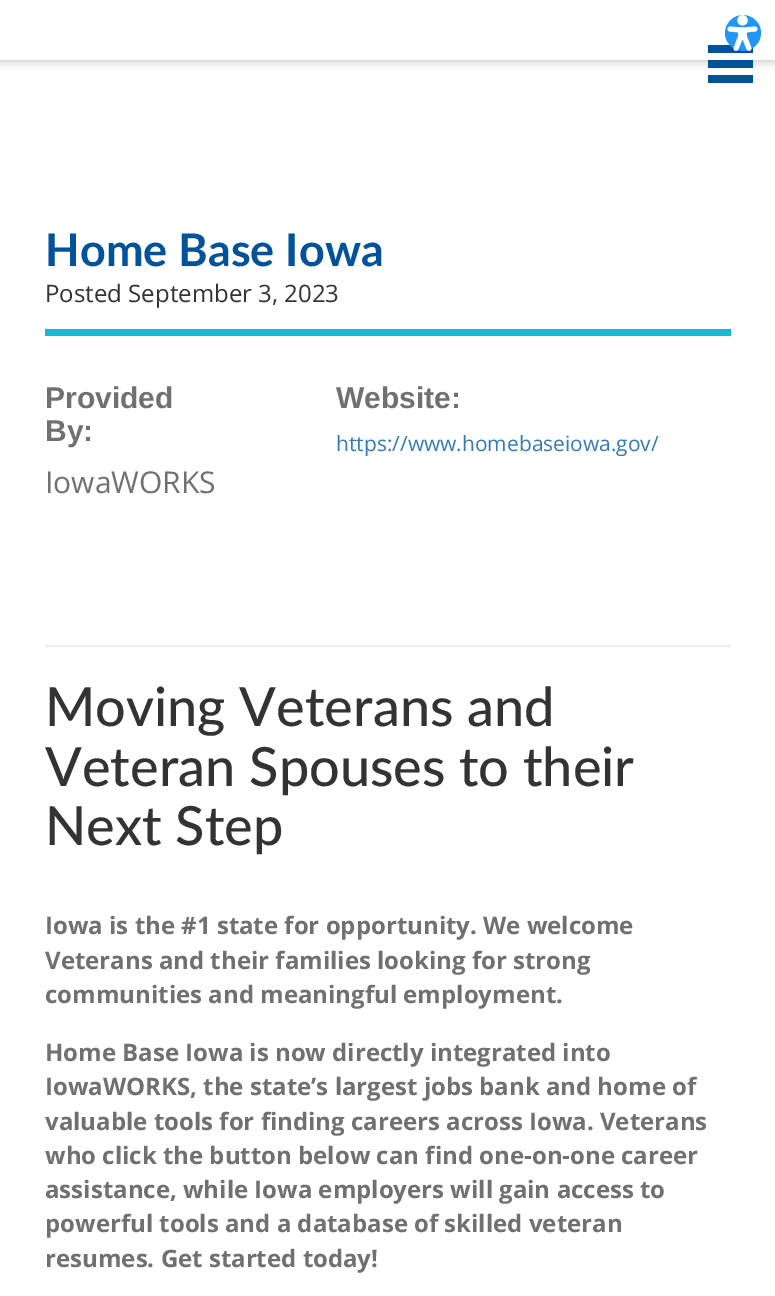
%!PS
<< /PageSize [775 1296] /PageUsesTransparency true >> setpagedevice
/rgb { dup -16 bitshift 255 div exch dup -8 bitshift 255 and 255 div exch 255 and 255 div setrgbcolor } def
/font { [ exch dup neg 0 0 3 -1 roll 0 0 ] selectfont } def
/text { moveto show } def
/alpha { dup .setfillconstantalpha .setstrokeconstantalpha } def
/circle { newpath 0 360 arc closepath } def
/roundrect { 5 dict begin { /r /h /w /y /x } { exch def } forall
  x r add y moveto x w add y 2 copy h add r arct x w add y h add x 1 index r arct
  x y h add x y r arct x y 2 copy exch w add exch r arct closepath end } def
/shadow { 12 dict begin { /a /b /q /h /w /y /x } { exch def } forall gsave /was 0 def
  9 -2 -9 { dup b mul 4 div /e exch def 1 sub .425 mul 2.718 exch exp 1 add a .99 .min exch div /now exch def
    1 1 now sub 1 was sub div sub alpha /was now def
    w h .min e 2 mul add 0 gt { x e sub y e sub w e 2 mul add h e 2 mul add
      q e add b .6 mul add w h .min 2 div e add .min 0 .max roundrect fill } if } for grestore end } def
/picture { 5 dict begin { /h /w /y /x /name } { exch def } forall
  gsave x y translate w h scale
  w h 8 [w 0 0 h 0 0] name (r) file false 3 colorimage grestore end } def
0 .pushpdf14devicefilter
0 1296 translate 1 -1 scale
4 setmiterlimit
/s1 { /Lato-Bold 45 font 16#00529B rgb } def
/s2 { /OpenSans-Regular 24 font 16#333333 rgb } def
/s3 { /LiberationSans-Bold 30 font 16#707070 rgb } def
/s4 { /OpenSans-Regular 30 font 16#707070 rgb } def
/s5 { /OpenSans-Regular 21 font 16#337AB7 rgb } def
/s6 { /Lato-Medium 54 font 16#333333 rgb } def
/s7 { /OpenSans-Bold 24 font 16#707070 rgb } def
16#FFFFFF rgb
0 0 775 1296 rectfill
gsave
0 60 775 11 rectclip
16#C9C9C9 rgb
0 2 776 60 0 4.5 1 shadow
grestore
16#00529B rgb
708 45 45 8 rectfill
708 60 45 8 rectfill
708 75 45 8 rectfill
16#2196F3 rgb
743 33 18 circle fill
(pic1.raw) 727 15 31 36 picture
16#1DB7D3 rgb
45 329 686 7 rectfill
s1
(Home Base Iowa) 45 266 text
s2
(Posted September 3, 2023) 45 302 text
s3
(Provided) 45 408 text
(By:) 45 441 text
s4
(IowaWORKS) 45 493 text
s3
(Website:) 336 408 text
s5
(https://www.homebaseiowa.gov/) 336 451 text
16#EEEEEE rgb
45 645 686 2 rectfill
s6
(Moving Veterans and) 45 726 text
(Veteran Spouses to their) 45 786 text
(Next Step) 45 845 text
s7
(Iowa is the #1 state for opportunity. We welcome) 45 934 text
(Veterans and their families looking for strong) 45 969 text
(communities and meaningful employment.) 45 1003 text
(Home Base Iowa is now directly integrated into) 45 1061 text
(IowaWORKS, the state’s largest jobs bank and home of) 45 1095 text
(valuable tools for finding careers across Iowa. Veterans) 45 1130 text
(who click the button below can find one-on-one career) 45 1164 text
(assistance, while Iowa employers will gain access to) 45 1198 text
(powerful tools and a database of skilled veteran) 45 1232 text
(resumes. Get started today!) 45 1267 text
.poppdf14devicefilter showpage
